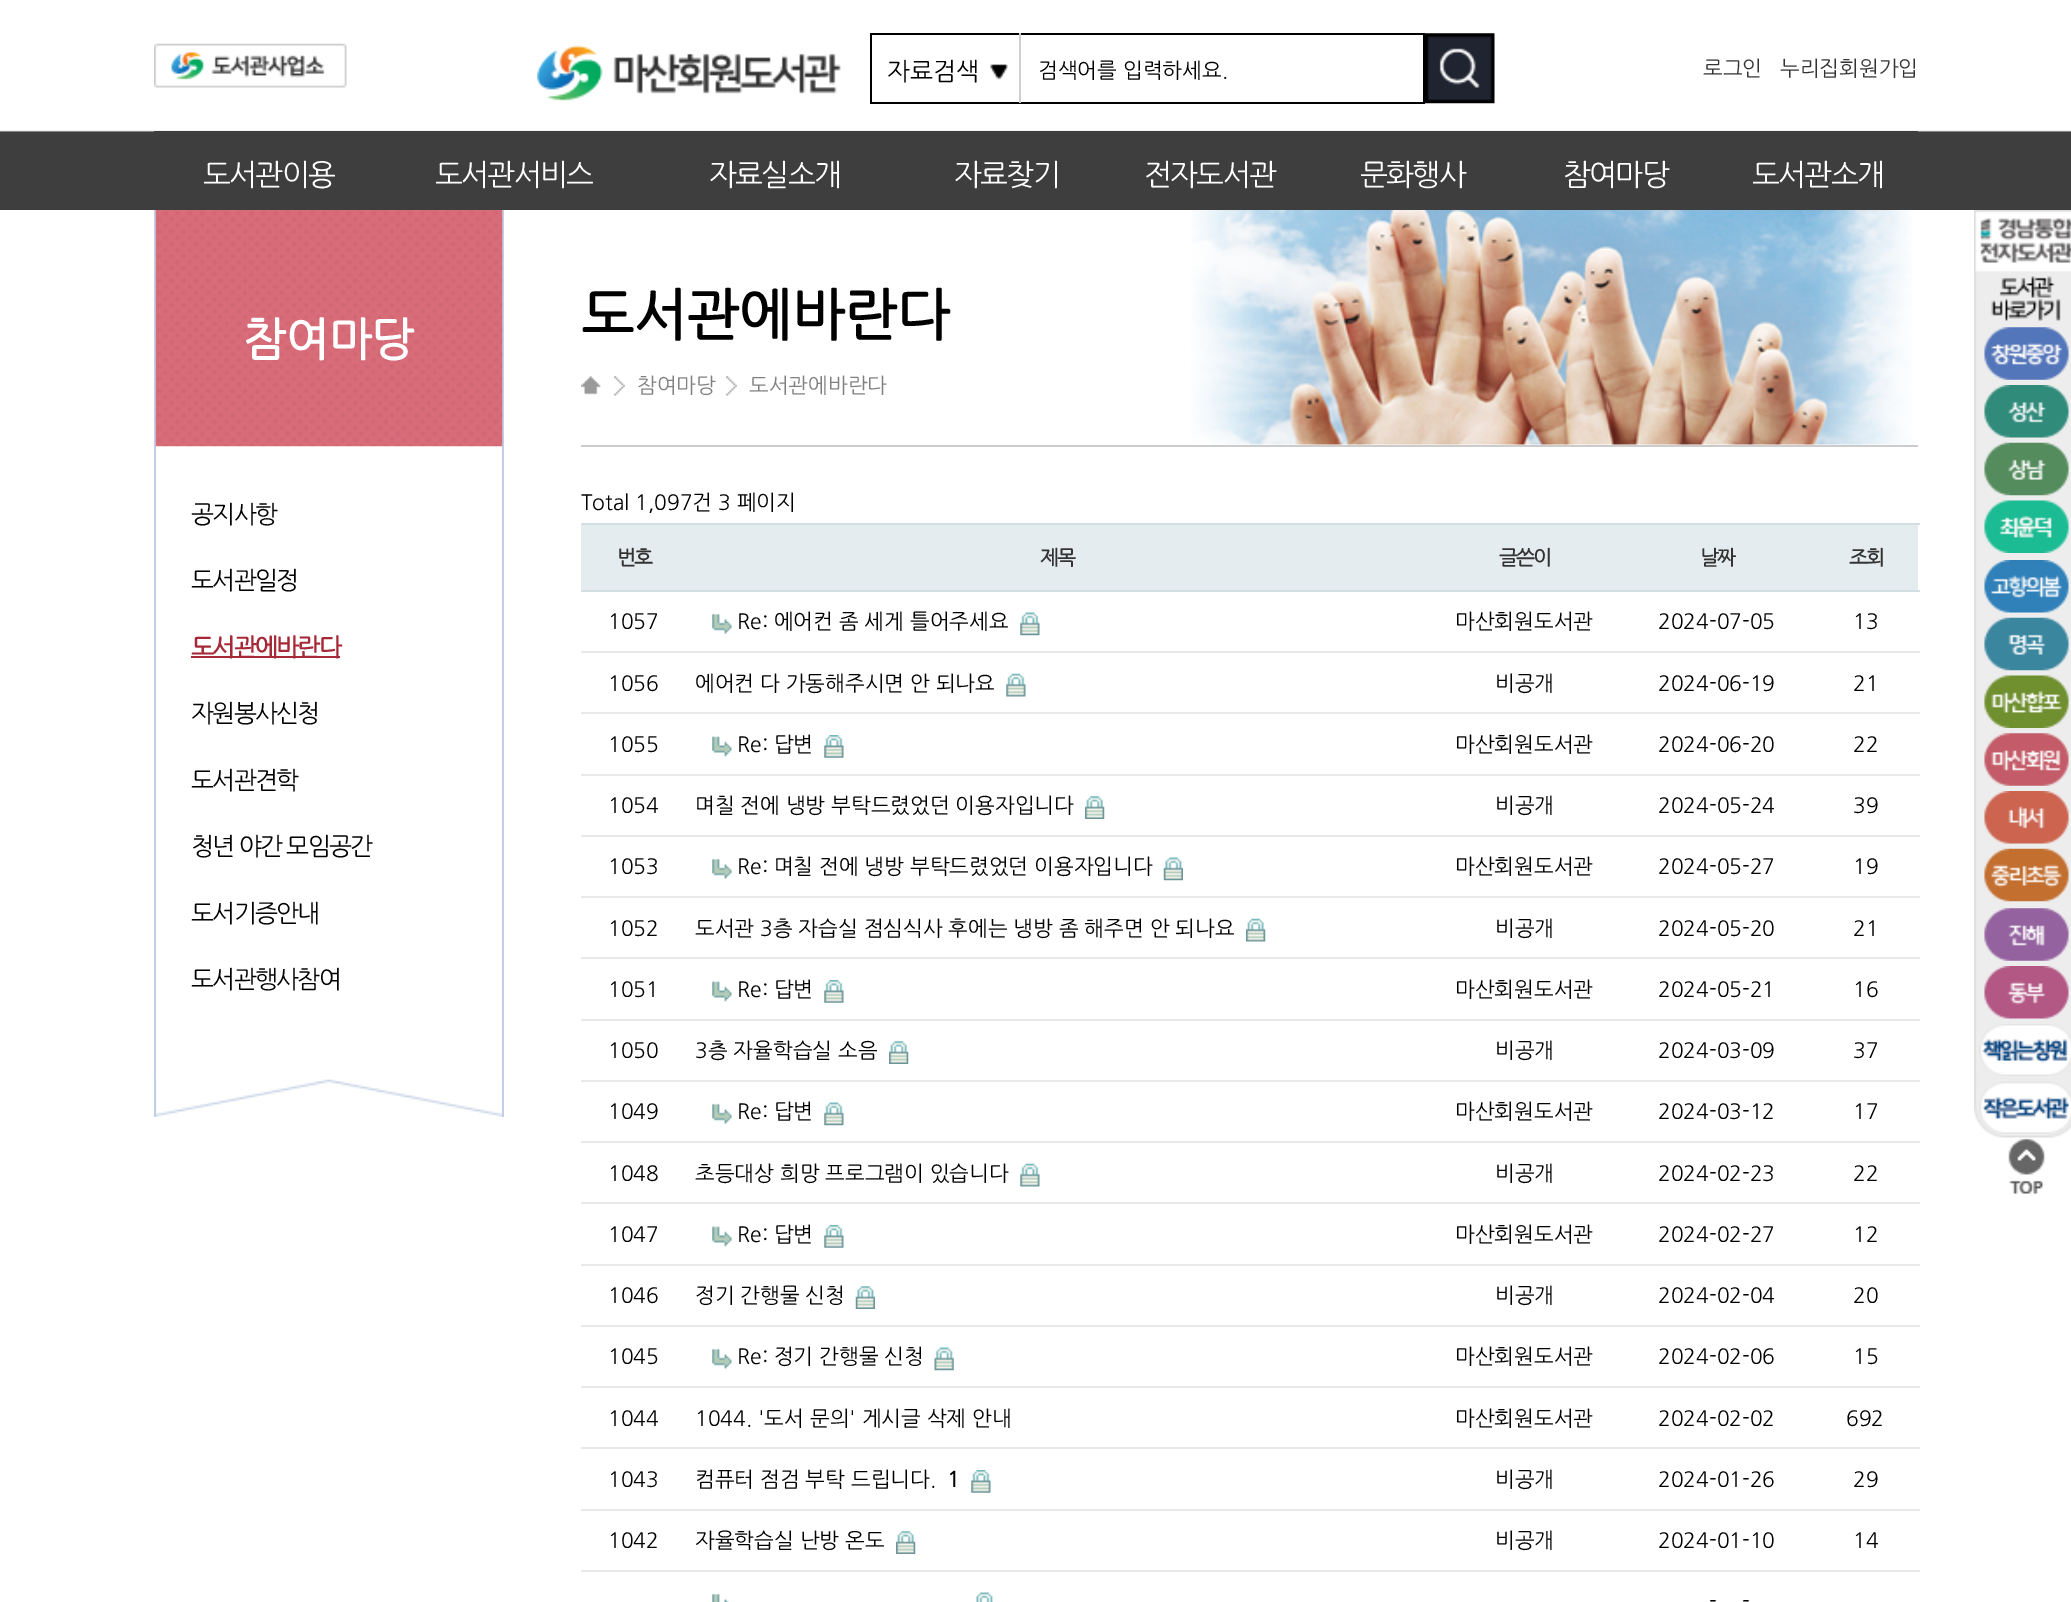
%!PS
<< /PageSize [2071 1602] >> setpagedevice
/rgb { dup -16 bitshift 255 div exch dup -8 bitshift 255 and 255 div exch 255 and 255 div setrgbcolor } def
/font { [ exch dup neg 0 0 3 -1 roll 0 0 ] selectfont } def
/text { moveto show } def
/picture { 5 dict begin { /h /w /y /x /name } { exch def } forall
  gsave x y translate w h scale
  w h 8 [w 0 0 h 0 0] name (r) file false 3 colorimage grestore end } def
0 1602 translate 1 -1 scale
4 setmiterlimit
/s1 { /NanumGothic-Regular 24.5 font 16#000000 rgb } def
/s2 { /NanumGothic-Regular 21 font 16#000000 rgb } def
/s3 { /NanumGothic-Regular 21 font 16#333333 rgb } def
/s4 { /NanumGothic-Bold 45.5 font 16#FFFFFF rgb } def
/s5 { /NanumGothic-Bold 56 font 16#000000 rgb } def
/s6 { /NanumGothic-Regular 21 font 16#808080 rgb } def
/s7 { /NanumGothic-Bold 21 font 16#000000 rgb } def
16#FFFFFF rgb
0 0 2071 1602 rectfill
(pic1.raw) 0 0 2071 210 picture
(pic2.raw) 154 43 193 45 picture
(pic3.raw) 537 45 304 56 picture
16#000000 rgb
870 33 555 2 rectfill
1423 33 2 70 rectfill
870 102 555 2 rectfill
870 33 2 70 rectfill
s1
(자료검색) 887 79 text
(pic4.raw) 990 64 18 16 picture
16#CFCFCF rgb
1019 33 2 70 rectfill
s2
(검색어를 입력하세요.) 1038 77 text
(pic5.raw) 1425 33 70 71 picture
s3
(로그인) 1703 75 text
(누리집회원가입) 1780 75 text
16#3E3E3E rgb
154 131 1764 1 rectfill
/NanumGothic-Regular 29.75 font
16#FFFFFF rgb
203 184 moveto -1.75 0 (도서관이용) ashow
435 184 moveto -1.75 0 (도서관서비스) ashow
709 184 moveto -1.75 0 (자료실소개) ashow
954 184 moveto -1.75 0 (자료찾기) ashow
1144 184 moveto -1.75 0 (전자도서관) ashow
1360 184 moveto -1.75 0 (문화행사) ashow
1563 184 moveto -1.75 0 (참여마당) ashow
1752 184 moveto -1.75 0 (도서관소개) ashow
(pic6.raw) 156 1078 346 39 picture
16#C3CFE6 rgb
502 210 2 907 rectfill
154 210 2 907 rectfill
(pic7.raw) 155 210 348 237 picture
s4
(참여마당) 243 354 text
/NanumGothic-Regular 24.5 font
16#000000 rgb
191 522 moveto -1.75 0 (공지사항) ashow
191 588 moveto -1.75 0 (도서관일정) ashow
16#A62938 rgb
191 656 149 2 rectfill
/NanumGothic-Bold 24.5 font
191 655 moveto -1.75 0 (도서관에바란다) ashow
/NanumGothic-Regular 24.5 font
16#000000 rgb
191 721 moveto -1.75 0 (자원봉사신청) ashow
191 788 moveto -1.75 0 (도서관견학) ashow
191 854 moveto -1.75 0 (청년 야간 모임공간) ashow
191 921 moveto -1.75 0 (도서기증안내) ashow
191 987 moveto -1.75 0 (도서관행사참여) ashow
s5
(도서관에바란다) 581 333 text
(pic8.raw) 581 375 20 20 picture
(pic9.raw) 614 376 11 20 picture
s6
(참여마당) 637 392 text
(pic10.raw) 726 376 11 20 picture
(도서관에바란다) 749 392 text
(pic11.raw) 1191 210 721 235 picture
16#CCCCCC rgb
581 445 1337 2 rectfill
s2
(Total 1,097건 3 페이지) 581 509 text
16#E5ECEF rgb
581 525 1337 65 rectfill
/NanumGothic-Bold 20 font
16#333333 rgb
617 564 moveto -2 0 (번호) ashow
1040 564 moveto -2 0 (제목) ashow
1499 564 moveto -2 0 (글쓴이) ashow
1700 564 moveto -2 0 (날짜) ashow
16#D1DEE2 rgb
581 523 1339 2 rectfill
581 590 1339 2 rectfill
16#333333 rgb
1849 564 moveto -2 0 (조회) ashow
s2
(1057) 608 628 text
(pic12.raw) 712 613 20 21 picture
(Re: 에어컨 좀 세게 틀어주세요) 737 628 text
(pic13.raw) 1020 612 20 24 picture
(마산회원도서관) 1455 628 text
(2024-07-05) 1658 628 text
(13) 1853 628 text
(1056) 608 690 text
(에어컨 다 가동해주시면 안 되나요) 695 690 text
(pic14.raw) 1006 673 20 24 picture
(비공개) 1495 690 text
(2024-06-19) 1658 690 text
16#E9E9E9 rgb
581 651 1339 2 rectfill
s2
(21) 1853 690 text
(1055) 608 751 text
(pic15.raw) 712 736 20 21 picture
(Re: 답변) 737 751 text
(pic16.raw) 824 735 20 23 picture
(마산회원도서관) 1455 751 text
(2024-06-20) 1658 751 text
16#E9E9E9 rgb
581 712 1339 2 rectfill
s2
(22) 1853 751 text
(1054) 608 812 text
(며칠 전에 냉방 부탁드렸었던 이용자입니다) 695 812 text
(pic17.raw) 1085 796 20 23 picture
(비공개) 1495 812 text
(2024-05-24) 1658 812 text
16#E9E9E9 rgb
581 774 1339 2 rectfill
s2
(39) 1853 812 text
(1053) 608 873 text
(pic12.raw) 712 858 20 21 picture
(Re: 며칠 전에 냉방 부탁드렸었던 이용자입니다) 737 873 text
(pic18.raw) 1163 857 20 24 picture
(마산회원도서관) 1455 873 text
(2024-05-27) 1658 873 text
16#E9E9E9 rgb
581 835 1339 2 rectfill
s2
(19) 1853 873 text
(1052) 608 935 text
(도서관 3층 자습실 점심식사 후에는 냉방 좀 해주면 안 되나요) 695 935 text
(pic19.raw) 1246 918 20 24 picture
(비공개) 1495 935 text
(2024-05-20) 1658 935 text
16#E9E9E9 rgb
581 896 1339 2 rectfill
s2
(21) 1853 935 text
(1051) 608 996 text
(pic15.raw) 712 981 20 21 picture
(Re: 답변) 737 996 text
(pic16.raw) 824 980 20 23 picture
(마산회원도서관) 1455 996 text
(2024-05-21) 1658 996 text
16#E9E9E9 rgb
581 957 1339 2 rectfill
s2
(16) 1853 996 text
(1050) 608 1057 text
(3층 자율학습실 소음) 695 1057 text
(pic17.raw) 889 1041 20 23 picture
(비공개) 1495 1057 text
(2024-03-09) 1658 1057 text
16#E9E9E9 rgb
581 1019 1339 2 rectfill
s2
(37) 1853 1057 text
(1049) 608 1118 text
(pic12.raw) 712 1103 20 21 picture
(Re: 답변) 737 1118 text
(pic13.raw) 824 1102 20 24 picture
(마산회원도서관) 1455 1118 text
(2024-03-12) 1658 1118 text
16#E9E9E9 rgb
581 1080 1339 2 rectfill
s2
(17) 1853 1118 text
(1048) 608 1180 text
(초등대상 희망 프로그램이 있습니다) 695 1180 text
(pic20.raw) 1020 1163 20 24 picture
(비공개) 1495 1180 text
(2024-02-23) 1658 1180 text
16#E9E9E9 rgb
581 1141 1339 2 rectfill
s2
(22) 1853 1180 text
(1047) 608 1241 text
(pic15.raw) 712 1226 20 21 picture
(Re: 답변) 737 1241 text
(pic16.raw) 824 1225 20 23 picture
(마산회원도서관) 1455 1241 text
(2024-02-27) 1658 1241 text
16#E9E9E9 rgb
581 1202 1339 2 rectfill
s2
(12) 1853 1241 text
(1046) 608 1302 text
(정기 간행물 신청) 695 1302 text
(pic21.raw) 855 1286 20 23 picture
(비공개) 1495 1302 text
(2024-02-04) 1658 1302 text
16#E9E9E9 rgb
581 1264 1339 2 rectfill
s2
(20) 1853 1302 text
(1045) 608 1363 text
(pic12.raw) 712 1348 20 21 picture
(Re: 정기 간행물 신청) 737 1363 text
(pic22.raw) 934 1347 20 24 picture
(마산회원도서관) 1455 1363 text
(2024-02-06) 1658 1363 text
16#E9E9E9 rgb
581 1325 1339 2 rectfill
s2
(15) 1853 1363 text
(1044) 608 1425 text
(1044. '도서 문의' 게시글 삭제 안내) 695 1425 text
(마산회원도서관) 1455 1425 text
(2024-02-02) 1658 1425 text
16#E9E9E9 rgb
581 1386 1339 2 rectfill
s2
(692) 1846 1425 text
(1043) 608 1486 text
(컴퓨터 점검 부탁 드립니다.) 695 1486 text
s7
(1) 947 1486 text
(pic16.raw) 971 1470 20 23 picture
s2
(비공개) 1495 1486 text
(2024-01-26) 1658 1486 text
16#E9E9E9 rgb
581 1447 1339 2 rectfill
s2
(29) 1853 1486 text
(1042) 608 1547 text
(자율학습실 난방 온도) 695 1547 text
(pic17.raw) 896 1531 20 23 picture
(비공개) 1495 1547 text
(2024-01-10) 1658 1547 text
16#E9E9E9 rgb
581 1509 1339 2 rectfill
s2
(14) 1853 1547 text
16#E9E9E9 rgb
581 1570 1339 2 rectfill
(pic23.raw) 712 1593 17 9 picture
(pic24.raw) 976 1592 17 10 picture
s2
(-) 1709 1608 text
(-) 1742 1608 text
(pic25.raw) 1974 210 97 62 picture
(pic26.raw) 1974 271 97 867 picture
(pic27.raw) 1991 276 70 45 picture
(pic28.raw) 1984 327 85 53 picture
(pic29.raw) 1984 385 85 53 picture
(pic30.raw) 1984 442 85 54 picture
(pic31.raw) 1984 500 85 53 picture
(pic32.raw) 1984 560 85 53 picture
(pic33.raw) 1984 617 85 54 picture
(pic34.raw) 1984 675 85 53 picture
(pic35.raw) 1984 733 85 53 picture
(pic36.raw) 1984 791 85 53 picture
(pic37.raw) 1984 848 85 54 picture
(pic38.raw) 1984 908 85 53 picture
(pic39.raw) 1984 966 85 53 picture
(pic40.raw) 1979 1024 92 52 picture
(pic41.raw) 1979 1081 92 53 picture
(pic42.raw) 2008 1138 37 56 picture
showpage
